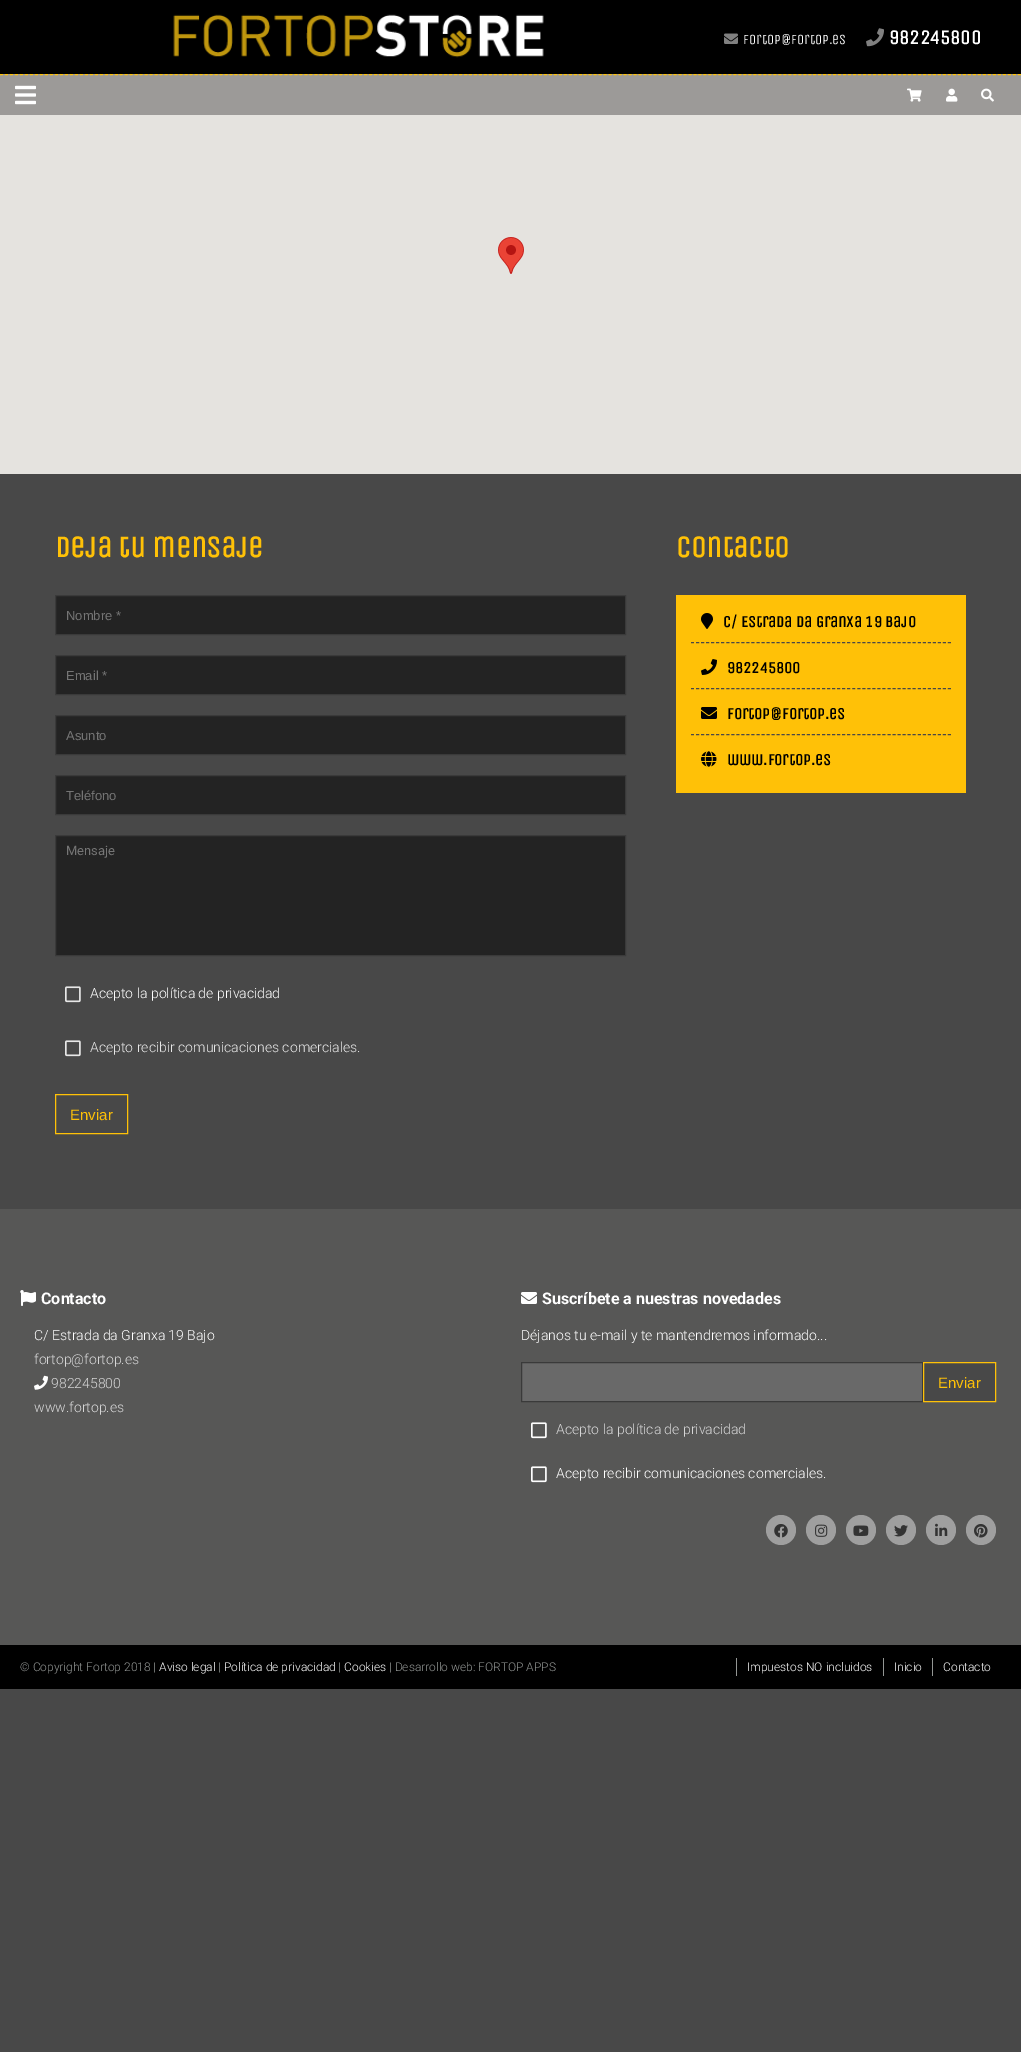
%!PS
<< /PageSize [1021 2052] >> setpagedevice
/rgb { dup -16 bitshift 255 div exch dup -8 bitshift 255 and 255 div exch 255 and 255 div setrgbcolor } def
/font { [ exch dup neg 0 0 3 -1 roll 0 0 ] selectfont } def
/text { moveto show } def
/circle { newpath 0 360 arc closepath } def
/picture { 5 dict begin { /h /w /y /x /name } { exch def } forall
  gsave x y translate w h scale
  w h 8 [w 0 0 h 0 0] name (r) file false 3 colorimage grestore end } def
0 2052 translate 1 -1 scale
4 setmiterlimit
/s1 { /UnicaOne-Regular 14 font 16#FFFFFF rgb } def
/s2 { /UnicaOne-Bold 20 font 16#FFFFFF rgb } def
/s3 { /UnicaOne-Bold 30 font 16#FFC107 rgb } def
/s4 { /LiberationSans-Regular 13 font 16#757575 rgb } def
/s5 { /Roboto-Regular 13 font 16#757575 rgb } def
/s6 { /Roboto-Light 14 font 16#FFFFFF rgb } def
/s7 { /Roboto-Light 14 font 16#E7E7E7 rgb } def
/s8 { /LiberationSans-Regular 15 font 16#FFC107 rgb } def
/s9 { /UnicaOne-Bold 16 font 16#000000 rgb } def
/s10 { /Roboto-Bold 16 font 16#FFFFFF rgb } def
/s11 { /Roboto-Light 14 font 16#D6D6D6 rgb } def
/s12 { /Roboto-Light 12 font 16#939694 rgb } def
/s13 { /Roboto-Light 12 font 16#FFFFFF rgb } def
16#484848 rgb
0 0 1021 2052 rectfill
16#000000 rgb
0 0 1021 74 rectfill
(pic1.raw) 173 14 371 44 picture
(pic2.raw) 724 33 14 11 picture
s1
(fortop@fortop.es) 743 44 text
(pic3.raw) 866 28 18 19 picture
s2
(982245800) 889 44 text
16#9C9A98 rgb
0 74 1021 41 rectfill
16#FFC107 rgb
[3 1.99] 0 setdash
0 74.5 moveto 1021 74.5 lineto stroke
(pic4.raw) 15 85 21 20 picture
(pic5.raw) 907 88 15 14 picture
(pic6.raw) 946 88 12 14 picture
(pic7.raw) 981 88 13 14 picture
16#E5E3DF rgb
0 115 1021 359 rectfill
(pic8.raw) 498 237 26 37 picture
s3
(Deja tu mensaje) 55 557 text
16#232323 rgb
55.5 595.5 moveto 625.5 595.5 lineto 625.5 634.5 lineto 55.5 634.5 lineto closepath gsave fill grestore
16#3A3A3A rgb
[] 0 setdash
stroke
s4
(Nombre *) 66 620 text
16#232323 rgb
55.5 655.5 moveto 625.5 655.5 lineto 625.5 694.5 lineto 55.5 694.5 lineto closepath gsave fill grestore
16#3A3A3A rgb
stroke
s4
(Email *) 66 680 text
16#232323 rgb
55.5 715.5 moveto 625.5 715.5 lineto 625.5 754.5 lineto 55.5 754.5 lineto closepath gsave fill grestore
16#3A3A3A rgb
stroke
s4
(Asunto) 66 740 text
16#232323 rgb
55.5 775.5 moveto 625.5 775.5 lineto 625.5 814.5 lineto 55.5 814.5 lineto closepath gsave fill grestore
16#3A3A3A rgb
stroke
s4
(Teléfono) 66 800 text
16#232323 rgb
55.5 835.5 moveto 625.5 835.5 lineto 625.5 955.5 lineto 55.5 955.5 lineto closepath gsave fill grestore
16#3A3A3A rgb
stroke
s5
(Mensaje) 66 855 text
(pic9.raw) 65 986 16 17 picture
s6
(Acepto la política de privacidad) 90 998 text
(pic9.raw) 65 1040 16 17 picture
s7
(Acepto recibir comunicaciones comerciales.) 90 1052 text
16#FFC107 rgb
55.5 1094.5 72 39 rectstroke
s8
(Enviar) 70 1120 text
s3
(Contacto) 676 557 text
676 595 290 198 rectfill
16#484848 rgb
[3 2.04] 0 setdash
691 642.5 moveto 951 642.5 lineto stroke
(pic10.raw) 701 613 12 16 picture
s9
(C/ Estrada da Granxa 19 Bajo) 723 627 text
16#484848 rgb
691 688.5 moveto 951 688.5 lineto stroke
(pic11.raw) 701 659 16 16 picture
s9
(982245800) 727 673 text
16#484848 rgb
691 734.5 moveto 951 734.5 lineto stroke
(pic12.raw) 701 707 16 12 picture
s9
(fortop@fortop.es) 727 719 text
(pic13.raw) 701 751 16 16 picture
(www.fortop.es) 727 765 text
16#575756 rgb
0 1209 1021 436 rectfill
(pic14.raw) 20 1290 16 16 picture
s10
(Contacto) 41 1304 text
s6
(C/ Estrada da Granxa 19 Bajo) 34 1340 text
s11
(fortop@fortop.es) 34 1364 text
(pic15.raw) 34 1375 14 15 picture
(982245800) 51 1388 text
(www.fortop.es) 34 1412 text
(pic16.raw) 521 1292 16 12 picture
s10
(Suscríbete a nuestras novedades) 542 1304 text
s6
(Déjanos tu e-mail y te mantendremos informado...) 521 1340 text
16#696969 rgb
521.5 1362.5 moveto 922.5 1362.5 lineto 922.5 1401.5 lineto 521.5 1401.5 lineto closepath gsave fill grestore
16#3A3A3A rgb
[] 0 setdash
stroke
16#484848 rgb
923.5 1362.5 moveto 995.5 1362.5 lineto 995.5 1401.5 lineto 923.5 1401.5 lineto closepath gsave fill grestore
16#FFC107 rgb
stroke
s8
(Enviar) 938 1388 text
(pic17.raw) 531 1422 16 17 picture
s11
(Acepto la política de privacidad) 556 1434 text
(pic17.raw) 531 1466 16 17 picture
s6
(Acepto recibir comunicaciones comerciales.) 556 1478 text
16#9F9F9F rgb
781 1530 15 circle fill
(pic18.raw) 774 1524 14 14 picture
821 1530 15 circle fill
(pic19.raw) 815 1524 13 13 picture
861 1530 15 circle fill
(pic20.raw) 853 1525 16 11 picture
901 1530 15 circle fill
(pic21.raw) 894 1525 14 12 picture
941 1530 15 circle fill
(pic22.raw) 935 1523 13 13 picture
981 1530 15 circle fill
(pic23.raw) 974 1524 14 14 picture
16#000000 rgb
0 1645 1021 44 rectfill
s12
(© Copyright Fortop 2018 |) 20 1671 text
s13
(Aviso legal) 159 1671 text
s12
(|) 218 1671 text
s13
(Política de privacidad) 224 1671 text
s12
(|) 338 1671 text
s13
(Cookies) 344 1671 text
s12
(| Desarrollo web: FORTOP APPS) 389 1671 text
736 1658 1 18 rectfill
s13
(Impuestos NO incluidos) 747 1671 text
16#939694 rgb
883 1658 1 18 rectfill
s13
(Inicio) 894 1671 text
16#939694 rgb
932 1658 1 18 rectfill
s13
(Contacto) 943 1671 text
showpage
